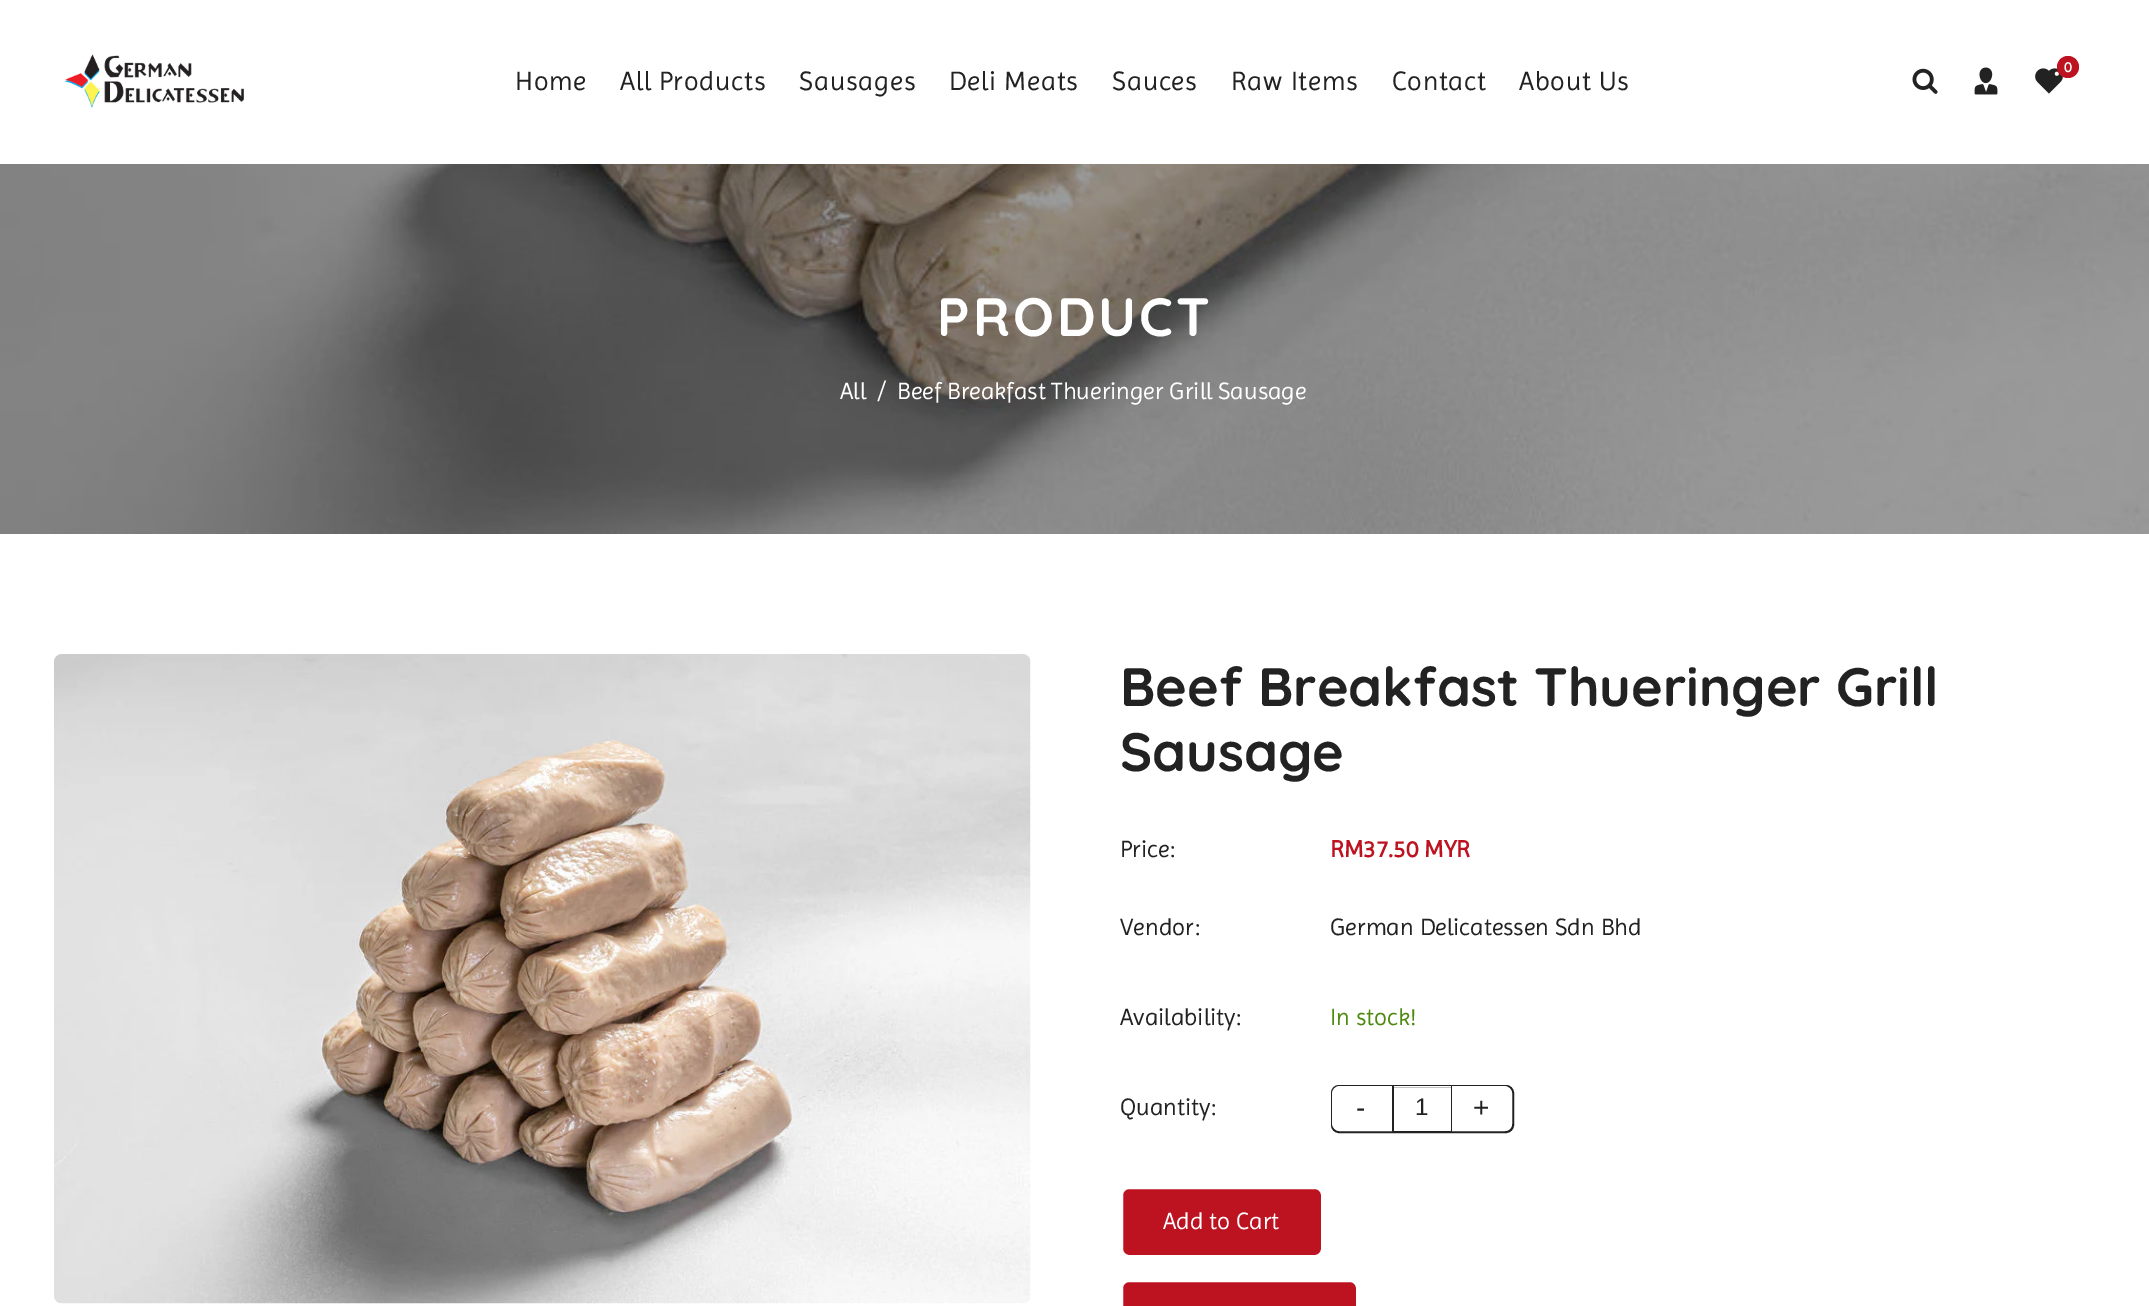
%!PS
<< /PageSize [2149 1306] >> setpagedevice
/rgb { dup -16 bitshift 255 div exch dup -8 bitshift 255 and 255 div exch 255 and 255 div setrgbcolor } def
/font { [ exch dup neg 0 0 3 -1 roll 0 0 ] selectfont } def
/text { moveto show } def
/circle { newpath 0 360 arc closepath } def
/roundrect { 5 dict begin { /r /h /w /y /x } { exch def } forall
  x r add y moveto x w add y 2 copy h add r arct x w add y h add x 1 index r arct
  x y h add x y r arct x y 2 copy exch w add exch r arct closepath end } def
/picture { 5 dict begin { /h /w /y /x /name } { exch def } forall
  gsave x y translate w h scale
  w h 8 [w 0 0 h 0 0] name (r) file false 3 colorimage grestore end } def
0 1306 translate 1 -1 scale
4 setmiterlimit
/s1 { /Imprima-Bold 15 font 16#FFFFFF rgb } def
/s2 { /Imprima-Regular 24 font 16#FFFFFF rgb } def
/s3 { /Quicksand-Bold 54 font 16#222222 rgb } def
/s4 { /Imprima-Regular 24 font 16#222222 rgb } def
/s5 { /Imprima-Bold 24 font 16#BD1220 rgb } def
/s6 { /Imprima-Regular 24 font 16#4F8A10 rgb } def
/s7 { /LiberationSans-Regular 28 font 16#222222 rgb } def
/s8 { /LiberationSans-Regular 24 font 16#222222 rgb } def
16#FFFFFF rgb
0 0 2149 1306 rectfill
(pic1.raw) 64 54 180 54 picture
(pic2.raw) 1912 68 26 26 picture
(pic3.raw) 1974 67 24 28 picture
(pic4.raw) 2035 68 28 26 picture
16#BD1220 rgb
2068 67 11 circle fill
s1
(0) 2064 72 text
/Imprima-Regular 27 font
16#222222 rgb
515 90 moveto 0.75 0 (Home) ashow
620 90 moveto 0.75 0 (All Products) ashow
799 90 moveto 0.75 0 (Sausages) ashow
949 90 moveto 0.75 0 (Deli Meats) ashow
1112 90 moveto 0.75 0 (Sauces) ashow
1231 90 moveto 0.75 0 (Raw Items) ashow
1392 90 moveto 0.75 0 (Contact) ashow
1519 90 moveto 0.75 0 (About Us) ashow
(pic5.raw) 0 164 2149 370 picture
/Quicksand-Bold 54 font
16#FFFFFF rgb
937 336 moveto 3 0 (PRODUCT) ashow
s2
(All) 840 399 text
(/) 878 399 text
(Beef Breakfast Thueringer Grill Sausage) 897 399 text
(pic6.raw) 54 654 977 650 picture
s3
(Beef Breakfast Thueringer Grill) 1120 706 text
(Sausage) 1120 771 text
s4
(Price:) 1120 857 text
s5
(RM37.50 MYR) 1330 857 text
s4
(Vendor:) 1120 935 text
(German Delicatessen Sdn Bhd) 1330 935 text
(Availability:) 1120 1025 text
s6
(In stock!) 1330 1025 text
s4
(Quantity:) 1120 1115 text
2 setlinewidth
1332 1086 181 46 7 roundrect stroke
16#FFFFFF rgb
1340 1087 moveto 1391 1087 lineto 1391 1130 lineto 1340 1130 lineto 1336 1130 1333 1127 1333 1123 curveto 1333 1094 lineto 1333 1090 1336 1087 1340 1087 curveto closepath gsave fill grestore
stroke
s7
(-) 1356 1117 text
16#FFFFFF rgb
1394 1086 57 1 rectfill
16#222222 rgb
1451 1086 1 45 rectfill
1392 1086 2 45 rectfill
s8
(1) 1415 1115 text
16#FFFFFF rgb
1453 1087 moveto 1504 1087 lineto 1508 1087 1511 1090 1511 1094 curveto 1511 1123 lineto 1511 1127 1508 1130 1504 1130 curveto 1453 1130 lineto closepath gsave fill grestore
stroke
s7
(+) 1473 1117 text
16#BD1220 rgb
1122 1188 200 68 7 roundrect gsave fill grestore
16#FFFFFF rgb
stroke
s2
(Add to Cart) 1163 1229 text
16#BD1220 rgb
1122 1281 235 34 7 roundrect gsave fill grestore
16#FFFFFF rgb
stroke
showpage
